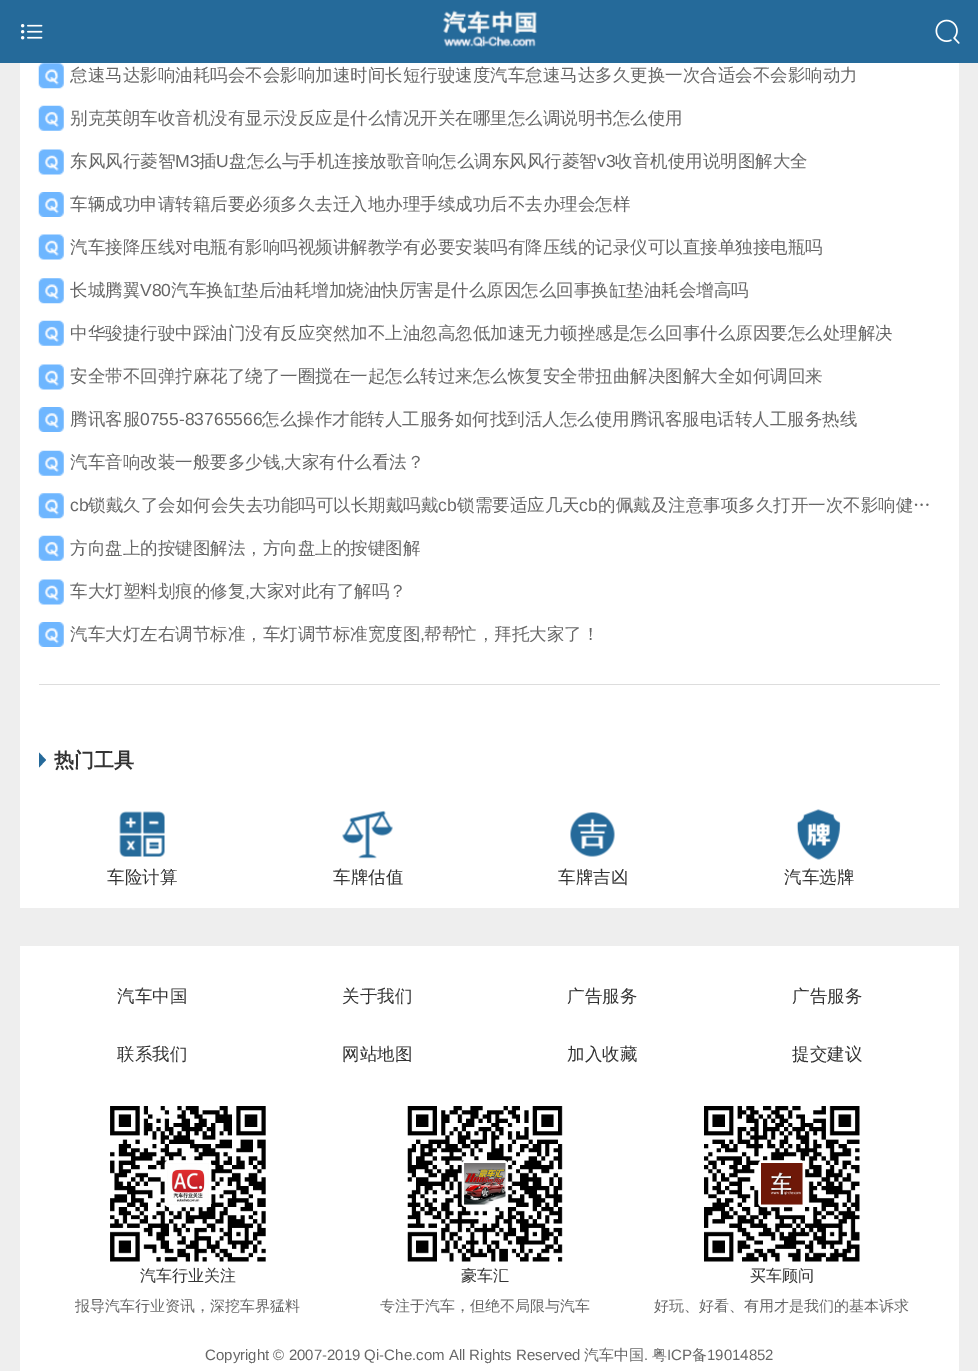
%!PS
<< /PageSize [978 1371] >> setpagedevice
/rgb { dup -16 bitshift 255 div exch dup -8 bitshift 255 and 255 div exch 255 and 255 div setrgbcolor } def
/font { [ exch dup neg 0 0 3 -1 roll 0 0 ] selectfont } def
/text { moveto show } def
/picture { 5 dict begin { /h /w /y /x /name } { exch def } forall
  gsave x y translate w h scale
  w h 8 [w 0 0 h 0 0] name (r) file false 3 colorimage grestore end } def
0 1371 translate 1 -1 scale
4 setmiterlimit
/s1 { /WenQuanYiZenHei-Medium 17.5 font 16#666666 rgb } def
/s2 { /LiberationSans-Regular 17.5 font 16#666666 rgb } def
/s3 { /WenQuanYiZenHei-Bold 20 font 16#333333 rgb } def
/s4 { /WenQuanYiZenHei-Medium 17.5 font 16#333333 rgb } def
/s5 { /WenQuanYiZenHei-Medium 16 font 16#333333 rgb } def
/s6 { /WenQuanYiZenHei-Medium 15 font 16#666666 rgb } def
/s7 { /LiberationSans-Regular 15 font 16#666666 rgb } def
16#EEEEEE rgb
0 0 978 1371 rectfill
16#256A9A rgb
0 0 978 63 rectfill
(pic1.raw) 20 24 23 16 picture
(pic2.raw) 443 10 94 38 picture
(pic3.raw) 935 19 25 25 picture
16#FFFFFF rgb
20 63 939 845 rectfill
16#DDDDDD rgb
39 684 901 1 rectfill
(pic4.raw) 38 63 26 26 picture
s1
(怠速马达影响油耗吗会不会影响加速时间长短行驶速度汽车怠速马达多久更换一次合适会不会影响动力) 70 81 text
(pic5.raw) 38 105 26 26 picture
(别克英朗车收音机没有显示没反应是什么情况开关在哪里怎么调说明书怎么使用) 70 124 text
(pic6.raw) 38 149 26 26 picture
(东风风行菱智) 70 167 text
s2
(M3) 175 167 text
s1
(插) 199 167 text
s2
(U) 216 167 text
s1
(盘怎么与手机连接放歌音响怎么调东风风行菱智) 229 167 text
s2
(v3) 597 167 text
s1
(收音机使用说明图解大全) 615 167 text
(pic7.raw) 38 192 26 25 picture
(车辆成功申请转籍后要必须多久去迁入地办理手续成功后不去办理会怎样) 70 210 text
(pic8.raw) 38 234 26 26 picture
(汽车接降压线对电瓶有影响吗视频讲解教学有必要安装吗有降压线的记录仪可以直接单独接电瓶吗) 70 253 text
(pic4.raw) 38 278 26 26 picture
(长城腾翼) 70 296 text
s2
(V80) 140 296 text
s1
(汽车换缸垫后油耗增加烧油快厉害是什么原因怎么回事换缸垫油耗会增高吗) 171 296 text
(pic5.raw) 38 320 26 26 picture
(中华骏捷行驶中踩油门没有反应突然加不上油忽高忽低加速无力顿挫感是怎么回事什么原因要怎么处理解决) 70 339 text
(pic6.raw) 38 364 26 26 picture
(安全带不回弹拧麻花了绕了一圈搅在一起怎么转过来怎么恢复安全带扭曲解决图解大全如何调回来) 70 382 text
(pic7.raw) 38 407 26 25 picture
(腾讯客服) 70 425 text
s2
(0755-83765566) 140 425 text
s1
(怎么操作才能转人工服务如何找到活人怎么使用腾讯客服电话转人工服务热线) 262 425 text
(pic5.raw) 38 450 26 26 picture
(汽车音响改装一般要多少钱) 70 468 text
s2
(,) 280 468 text
s1
(大家有什么看法？) 284 468 text
(pic4.raw) 38 493 26 26 picture
s2
(cb) 70 511 text
s1
(锁戴久了会如何会失去功能吗可以长期戴吗戴) 88 511 text
s2
(cb) 438 511 text
s1
(锁需要适应几天) 457 511 text
s2
(cb) 579 511 text
s1
(的佩戴及注意事项多久打开一次不影响健…) 598 511 text
(pic5.raw) 38 535 26 26 picture
(方向盘上的按键图解法，方向盘上的按键图解) 70 554 text
(pic6.raw) 38 579 26 26 picture
(车大灯塑料划痕的修复) 70 597 text
s2
(,) 245 597 text
s1
(大家对此有了解吗？) 249 597 text
(pic9.raw) 38 622 26 25 picture
(汽车大灯左右调节标准，车灯调节标准宽度图) 70 640 text
s2
(,) 420 640 text
s1
(帮帮忙，拜托大家了！) 424 640 text
16#256A9A rgb
39 767.5 moveto 39 752.5 lineto 46 760 lineto closepath fill
s3
(热门工具) 54 767 text
(pic10.raw) 119 811 46 46 picture
s4
(车险计算) 107 883 text
(pic11.raw) 342 810 51 49 picture
(车牌估值) 333 883 text
(pic12.raw) 570 812 45 45 picture
(车牌吉凶) 558 883 text
(pic13.raw) 796 809 45 51 picture
(汽车选牌) 784 883 text
16#FFFFFF rgb
20 946 939 425 rectfill
s4
(汽车中国) 117 1002 text
(关于我们) 342 1002 text
(广告服务) 567 1002 text
(广告服务) 792 1002 text
(联系我们) 117 1060 text
(网站地图) 342 1060 text
(加入收藏) 567 1060 text
(提交建议) 792 1060 text
(pic14.raw) 110 1106 156 156 picture
s5
(汽车行业关注) 140 1281 text
s6
(报导汽车行业资讯，深挖车界猛料) 75 1311 text
(pic15.raw) 407 1106 156 156 picture
s5
(豪车汇) 461 1281 text
s6
(专注于汽车，但绝不局限与汽车) 380 1311 text
(pic16.raw) 704 1106 156 156 picture
s5
(买车顾问) 750 1281 text
s6
(好玩、好看、有用才是我们的基本诉求) 654 1311 text
s7
(Copyright © 2007-2019 Qi-Che.com All Rights Reserved) 205 1360 text
s6
(汽车中国) 584 1360 text
s7
(.) 644 1360 text
s6
(粤) 652 1360 text
s7
(ICP) 667 1360 text
s6
(备) 692 1360 text
s7
(19014852) 707 1360 text
showpage
